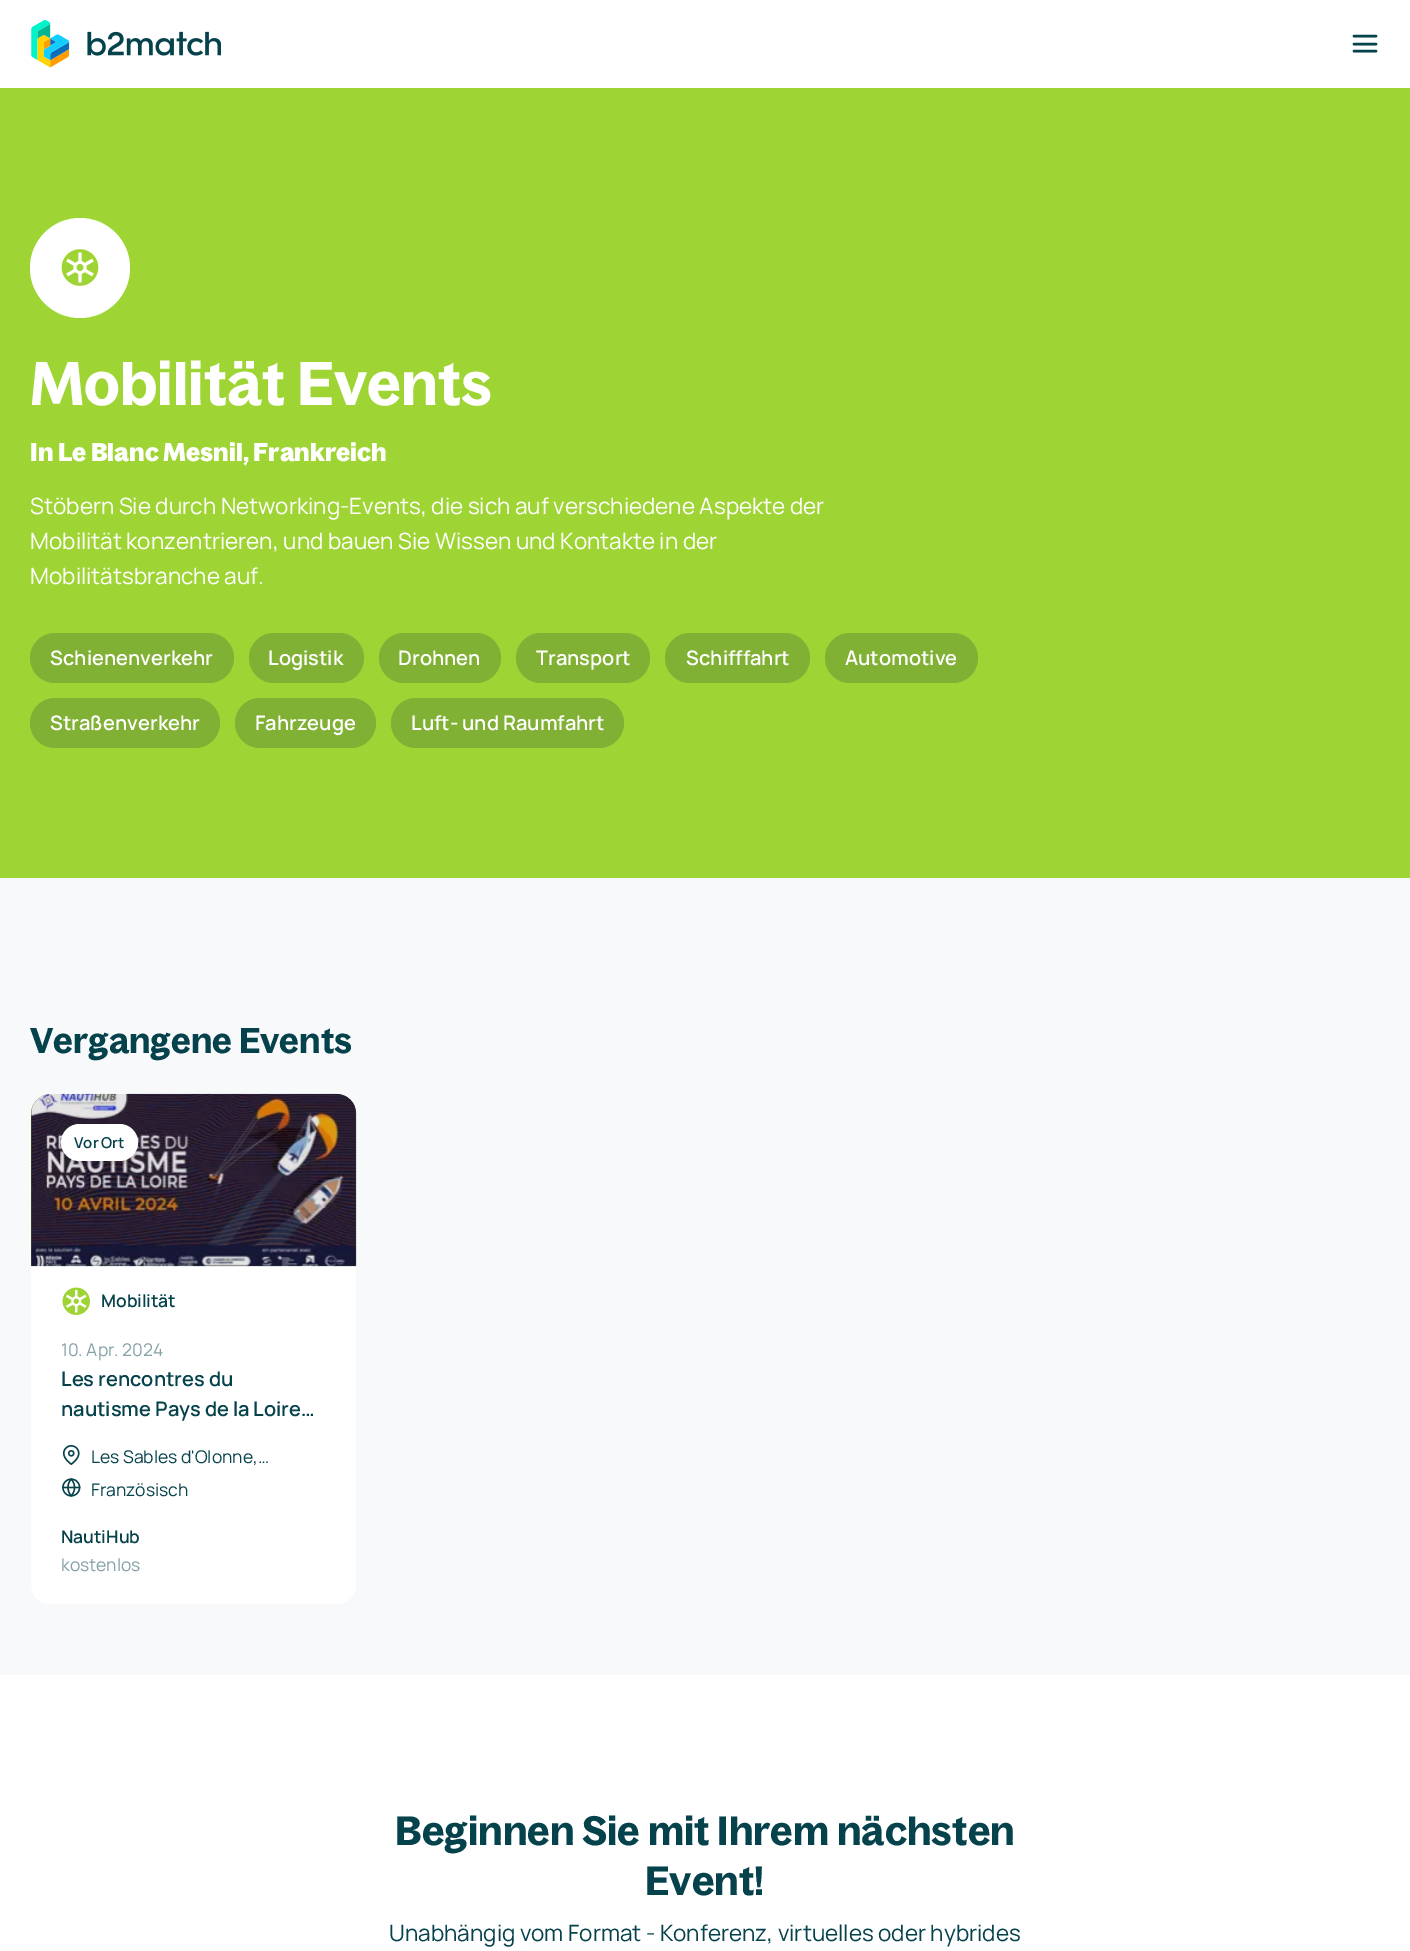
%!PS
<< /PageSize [1410 1951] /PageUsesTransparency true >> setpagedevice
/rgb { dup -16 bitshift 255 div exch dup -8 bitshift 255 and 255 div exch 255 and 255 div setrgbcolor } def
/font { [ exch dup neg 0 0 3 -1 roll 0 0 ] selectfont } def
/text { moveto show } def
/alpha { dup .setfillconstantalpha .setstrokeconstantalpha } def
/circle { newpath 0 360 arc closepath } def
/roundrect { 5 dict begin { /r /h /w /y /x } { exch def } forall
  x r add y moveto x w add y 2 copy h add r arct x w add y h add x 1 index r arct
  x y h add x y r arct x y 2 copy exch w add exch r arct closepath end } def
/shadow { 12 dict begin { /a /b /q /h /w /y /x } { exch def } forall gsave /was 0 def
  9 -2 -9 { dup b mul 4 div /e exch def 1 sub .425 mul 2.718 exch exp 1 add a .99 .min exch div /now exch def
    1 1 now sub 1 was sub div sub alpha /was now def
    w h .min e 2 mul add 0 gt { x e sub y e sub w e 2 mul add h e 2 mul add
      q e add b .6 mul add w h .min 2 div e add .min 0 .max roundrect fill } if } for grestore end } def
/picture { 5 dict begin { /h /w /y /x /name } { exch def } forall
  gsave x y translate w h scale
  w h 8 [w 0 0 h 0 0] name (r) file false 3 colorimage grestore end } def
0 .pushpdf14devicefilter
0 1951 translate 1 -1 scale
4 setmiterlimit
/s1 { /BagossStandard-SemiBold 60 font 16#FFFFFF rgb } def
/s2 { /BagossStandard-Bold 25 font 16#FFFFFF rgb } def
/s3 { /Manrope-Regular 22.5 font 16#FFFFFF rgb } def
/s4 { /Manrope-SemiBold 20 font 16#FFFFFF rgb } def
/s5 { /BagossStandard-SemiBold 35 font 16#05424C rgb } def
/s6 { /Manrope-SemiBold 15 font 16#05424C rgb } def
/s7 { /Manrope-SemiBold 17.5 font 16#05424C rgb } def
/s8 { /Manrope-Regular 17.5 font 16#82A0A5 rgb } def
/s9 { /Manrope-SemiBold 20 font 16#05424C rgb } def
/s10 { /Manrope-Regular 17.5 font 16#05424C rgb } def
/s11 { /BagossStandard-SemiBold 40 font 16#05424C rgb } def
/s12 { /Manrope-Regular 22.5 font 16#05424C rgb } def
16#FFFFFF rgb
0 0 1410 1951 rectfill
(pic1.raw) 31 20 190 48 picture
16#05424C rgb
2.5 setlinewidth
1 setlinecap
1 setlinejoin
1354 44 moveto 1376 44 lineto 1354 36 moveto 1376 36 lineto 1354 51 moveto 1376 51 lineto stroke
16#9FD435 rgb
0 88 1410 790 rectfill
16#FFFFFF rgb
80 268 50 circle fill
(pic2.raw) 61 249 38 37 picture
s1
(Mobilität Events) 30 405 text
s2
(In Le Blanc Mesnil, Frankreich) 30 461 text
s3
(Stöbern Sie durch Networking-Events, die sich auf verschiedene Aspekte der) 30 514 text
(Mobilität konzentrieren, und bauen Sie Wissen und Kontakte in der) 30 549 text
(Mobilitätsbranche auf.) 30 584 text
16#81B134 rgb
30 633 204 50 25 roundrect fill
s4
(Schienenverkehr) 50 665 text
16#81B134 rgb
249 633 115 50 25 roundrect fill
s4
(Logistik) 268 665 text
16#81B134 rgb
379 633 122 50 25 roundrect fill
s4
(Drohnen) 398 665 text
16#81B134 rgb
516 633 134 50 25 roundrect fill
s4
(Transport) 536 665 text
16#81B134 rgb
665 633 145 50 25 roundrect fill
s4
(Schifffahrt) 686 665 text
16#81B134 rgb
825 633 153 50 25 roundrect fill
s4
(Automotive) 845 665 text
16#81B134 rgb
30 698 190 50 25 roundrect fill
s4
(Straßenverkehr) 50 730 text
16#81B134 rgb
235 698 141 50 25 roundrect fill
s4
(Fahrzeuge) 255 730 text
16#81B134 rgb
391 698 233 50 25 roundrect fill
s4
(Luft- und Raumfahrt) 411 730 text
16#F8F9FA rgb
0 878 1410 797 rectfill
s5
(Vergangene Events) 30 1053 text
16#FFFFFF rgb
31 1094 325 510 19 roundrect fill
16#9FD435 rgb
51 1094 moveto 336 1094 lineto 347 1094 356 1103 356 1114 curveto 356 1266 lineto 31 1266 lineto 31 1114 lineto 31 1103 40 1094 51 1094 curveto closepath fill
0.5 alpha
16#000000 rgb
51 1094 moveto 336 1094 lineto 347 1094 356 1103 356 1114 curveto 356 1266 lineto 31 1266 lineto 31 1114 lineto 31 1103 40 1094 51 1094 curveto closepath fill
1 alpha
(pic3.raw) 31 1093 326 174 picture
0.1 alpha
51 1094 moveto 336 1094 lineto 347 1094 356 1103 356 1114 curveto 356 1266 lineto 31 1266 lineto 31 1114 lineto 31 1103 40 1094 51 1094 curveto closepath fill
1 alpha
61 1126 77 38 19 2.5 0.16 shadow
16#FFFFFF rgb
61 1124 77 37 18.5 roundrect fill
s6
(Vor Ort) 74 1148 text
(pic4.raw) 62 1287 28 28 picture
s7
(Mobilität) 101 1307 text
s8
(10. Apr. 2024) 61 1356 text
s9
(Les rencontres du) 61 1386 text
(nautisme Pays de la Loire…) 61 1416 text
(pic5.raw) 62 1445 18 20 picture
s10
(Les Sables d'Olonne,…) 91 1463 text
(pic6.raw) 62 1478 19 19 picture
(Französisch) 91 1496 text
s7
(NautiHub) 61 1543 text
s8
(kostenlos) 61 1571 text
s11
(Beginnen Sie mit Ihrem nächsten) 395 1845 text
(Event!) 645 1895 text
s12
(Unabhängig vom Format - Konferenz, virtuelles oder hybrides) 389 1941 text
.poppdf14devicefilter showpage
